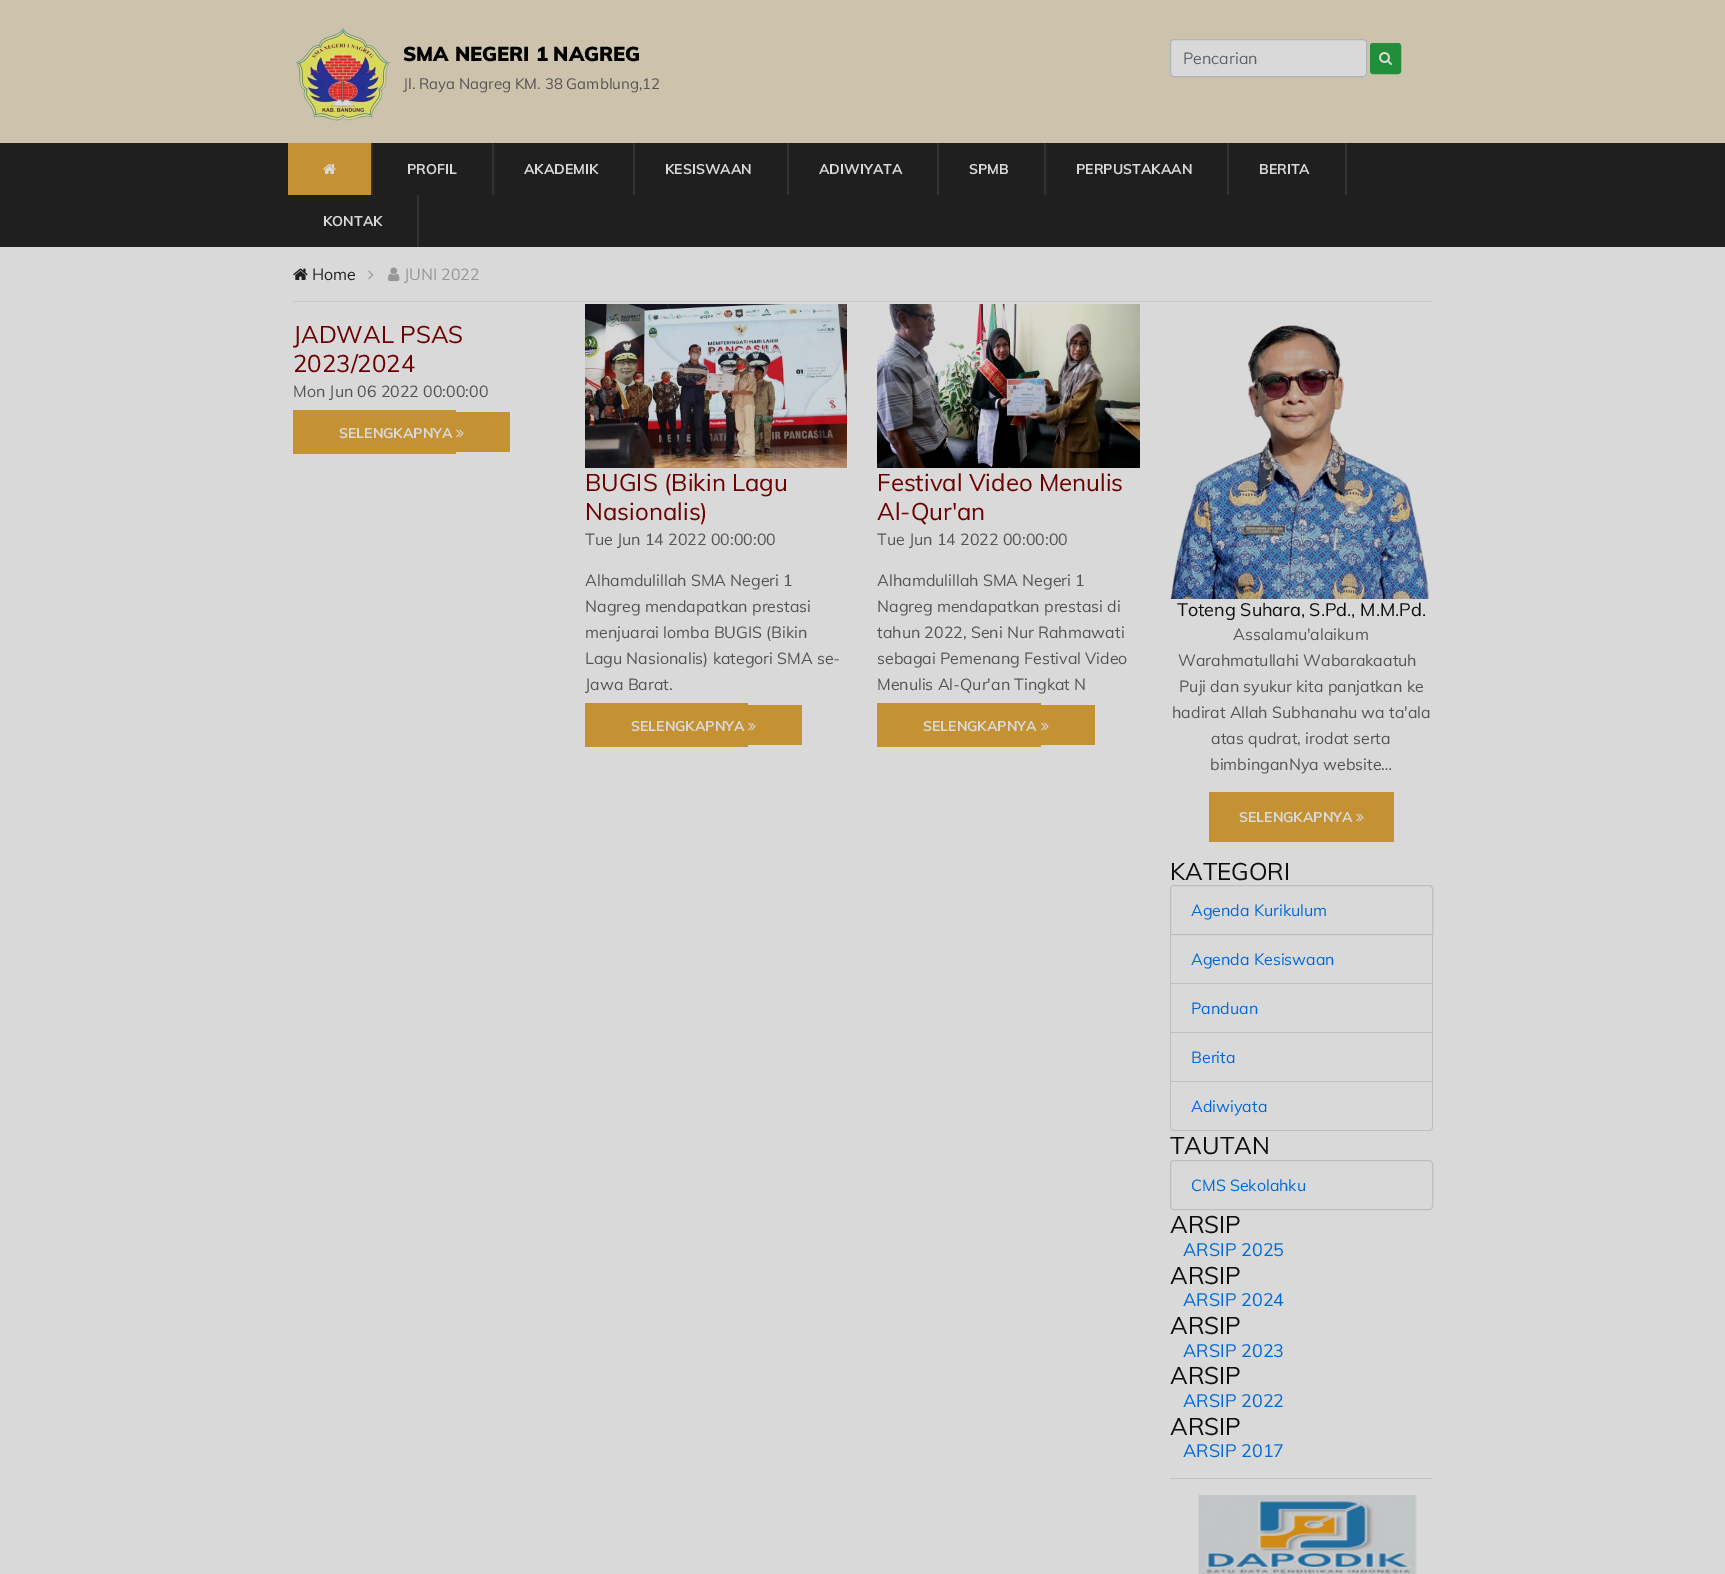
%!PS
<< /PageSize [1725 1574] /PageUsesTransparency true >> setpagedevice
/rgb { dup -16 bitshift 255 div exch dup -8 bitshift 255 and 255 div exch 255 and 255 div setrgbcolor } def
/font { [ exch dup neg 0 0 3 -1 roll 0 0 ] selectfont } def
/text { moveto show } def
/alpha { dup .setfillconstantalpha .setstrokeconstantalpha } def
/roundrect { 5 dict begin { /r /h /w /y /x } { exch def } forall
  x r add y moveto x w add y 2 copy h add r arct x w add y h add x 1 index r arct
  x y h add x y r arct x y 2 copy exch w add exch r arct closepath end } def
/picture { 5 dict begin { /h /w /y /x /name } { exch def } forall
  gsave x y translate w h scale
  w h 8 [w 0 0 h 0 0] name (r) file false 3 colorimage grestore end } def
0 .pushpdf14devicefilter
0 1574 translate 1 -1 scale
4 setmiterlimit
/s1 { /Muli-Black 20 font 16#000000 rgb } def
/s2 { /Muli-Regular 15 font 16#545454 rgb } def
/s3 { /Muli-Regular 16 font 16#5C636A rgb } def
/s4 { /Muli-Bold 14 font 16#D9D9D9 rgb } def
/s5 { /Muli-Regular 16 font 16#1F1F1F rgb } def
/s6 { /Muli-Regular 16 font 16#979797 rgb } def
/s7 { /Muli-Regular 24 font 16#6D0000 rgb } def
/s8 { /Muli-Regular 16 font 16#545454 rgb } def
/s9 { /Muli-Regular 18 font 16#0E0E0E rgb } def
/s10 { /Muli-Regular 24 font 16#0E0E0E rgb } def
/s11 { /Muli-Regular 16 font 16#0069D9 rgb } def
/s12 { /Muli-Regular 18 font 16#0069D9 rgb } def
16#D9D9D9 rgb
0 0 1725 1574 rectfill
16#CDC2AC rgb
0 0 1725 143 rectfill
(pic1.raw) 296 28 94 93 picture
s1
(SMA NEGERI 1 NAGREG) 403 61 text
s2
(Jl. Raya Nagreg KM. 38 Gamblung,12) 403 89 text
16#D9D9D9 rgb
1170.5 39.5 196 37 3.5 roundrect gsave fill grestore
16#AFB4B9 rgb
stroke
s3
(Pencarian) 1183 64 text
16#228E3B rgb
1370.5 43.5 30 30 2.5 roundrect gsave fill grestore
stroke
(pic2.raw) 1379 52 13 13 picture
16#1F1F1F rgb
0 143 1725 104 rectfill
16#C49133 rgb
288 143 83 52 rectfill
16#323232 rgb
371 143 2 52 rectfill
(pic3.raw) 323 164 13 10 picture
492 143 2 52 rectfill
s4
(PROFIL) 407 174 text
16#323232 rgb
633 143 2 52 rectfill
s4
(AKADEMIK) 524 174 text
16#323232 rgb
787 143 2 52 rectfill
s4
(KESISWAAN) 665 174 text
16#323232 rgb
937 143 2 52 rectfill
s4
(ADIWIYATA) 819 174 text
16#323232 rgb
1044 143 2 52 rectfill
s4
(SPMB) 969 174 text
16#323232 rgb
1227 143 2 52 rectfill
s4
(PERPUSTAKAAN) 1076 174 text
16#323232 rgb
1345 143 2 52 rectfill
s4
(BERITA) 1259 174 text
16#323232 rgb
417 195 2 52 rectfill
s4
(KONTAK) 323 226 text
16#C8C8C8 rgb
293 301 1140 1 rectfill
(pic4.raw) 293 268 15 12 picture
s5
(Home) 312 280 text
(pic5.raw) 368 270 6 10 picture
(pic6.raw) 388 267 12 15 picture
s6
(JUNI 2022) 404 280 text
s7
(JADWAL PSAS) 293 343 text
(2023/2024) 293 372 text
s8
(Mon Jun 06 2022 00:00:00) 293 397 text
16#C49133 rgb
293 410 163 44 rectfill
456 412 54 40 rectfill
s4
(SELENGKAPNYA) 339 438 text
(pic7.raw) 456 429 8 9 picture
(pic8.raw) 585 304 262 164 picture
s7
(BUGIS \(Bikin Lagu) 585 491 text
(Nasionalis\)) 585 520 text
s8
(Tue Jun 14 2022 00:00:00) 585 545 text
(Alhamdulillah SMA Negeri 1) 585 586 text
(Nagreg mendapatkan prestasi) 585 612 text
(menjuarai lomba BUGIS \(Bikin) 585 638 text
(Lagu Nasionalis\) kategori SMA se-) 585 664 text
(Jawa Barat.) 585 690 text
16#C49133 rgb
585 703 163 44 rectfill
748 705 54 40 rectfill
s4
(SELENGKAPNYA) 631 731 text
(pic7.raw) 748 722 8 9 picture
(pic9.raw) 877 304 263 164 picture
s7
(Festival Video Menulis) 877 491 text
(Al-Qur'an) 877 520 text
s8
(Tue Jun 14 2022 00:00:00) 877 545 text
(Alhamdulillah SMA Negeri 1) 877 586 text
(Nagreg mendapatkan prestasi di) 877 612 text
(tahun 2022, Seni Nur Rahmawati) 877 638 text
(sebagai Pemenang Festival Video) 877 664 text
(Menulis Al-Qur'an Tingkat N) 877 690 text
16#C49133 rgb
877 703 164 44 rectfill
1041 705 54 40 rectfill
s4
(SELENGKAPNYA) 923 731 text
(pic7.raw) 1041 722 8 9 picture
(pic10.raw) 1170 325 259 274 picture
s9
(Toteng Suhara, S.Pd., M.M.Pd.) 1177 616 text
s8
(Assalamu'alaikum) 1233 640 text
(Warahmatullahi Wabarakaatuh) 1178 666 text
(Puji dan syukur kita panjatkan ke) 1179 692 text
(hadirat Allah Subhanahu wa ta'ala) 1172 718 text
(atas qudrat, irodat serta) 1211 744 text
(bimbinganNya website…) 1210 770 text
16#C49133 rgb
1209 792 185 50 rectfill
s4
(SELENGKAPNYA) 1239 822 text
(pic7.raw) 1356 813 8 9 picture
s10
(KATEGORI) 1170 880 text
16#BEBEBE rgb
1174 885.5 moveto 1429 885.5 lineto 1431 885.5 1432.5 887 1432.5 889 curveto 1432.5 934.5 lineto 1170.5 934.5 lineto 1170.5 889 lineto 1170.5 887 1172 885.5 1174 885.5 curveto closepath stroke
s11
(Agenda Kurikulum) 1191 916 text
16#BEBEBE rgb
1433 935 moveto 1433 984 lineto 1432 983 lineto 1432 935 lineto closepath fill
0.12 alpha
16#000000 rgb
1433 984 moveto 1170 984 lineto 1171 983 lineto 1432 983 lineto closepath fill
1170 984 moveto 1170 935 lineto 1171 935 lineto 1171 983 lineto closepath fill
1 alpha
s11
(Agenda Kesiswaan) 1191 965 text
16#BEBEBE rgb
1433 984 moveto 1433 1033 lineto 1432 1032 lineto 1432 984 lineto closepath fill
0.12 alpha
16#000000 rgb
1433 1033 moveto 1170 1033 lineto 1171 1032 lineto 1432 1032 lineto closepath fill
1170 1033 moveto 1170 984 lineto 1171 984 lineto 1171 1032 lineto closepath fill
1 alpha
s11
(Panduan) 1191 1014 text
16#BEBEBE rgb
1433 1033 moveto 1433 1082 lineto 1432 1081 lineto 1432 1033 lineto closepath fill
0.12 alpha
16#000000 rgb
1433 1082 moveto 1170 1082 lineto 1171 1081 lineto 1432 1081 lineto closepath fill
1170 1082 moveto 1170 1033 lineto 1171 1033 lineto 1171 1081 lineto closepath fill
1 alpha
s11
(Berita) 1191 1063 text
16#BEBEBE rgb
1170 1082 moveto 1433 1082 lineto 1433 1127 lineto 1433 1129 1431 1131 1429 1131 curveto 1174 1131 lineto 1172 1131 1170 1129 1170 1127 curveto closepath 1171 1082 moveto 1432 1082 lineto 1432 1127 lineto 1432 1129 1431 1130 1429 1130 curveto 1174 1130 lineto 1172 1130 1171 1129 1171 1127 curveto closepath eofill
s11
(Adiwiyata) 1191 1112 text
s10
(TAUTAN) 1170 1154 text
16#BEBEBE rgb
1170.5 1160.5 262 49 3.5 roundrect stroke
s11
(CMS Sekolahku) 1191 1191 text
s10
(ARSIP) 1170 1233 text
s12
(ARSIP 2025) 1183 1256 text
s10
(ARSIP) 1170 1284 text
s12
(ARSIP 2024) 1183 1306 text
s10
(ARSIP) 1170 1334 text
s12
(ARSIP 2023) 1183 1357 text
s10
(ARSIP) 1170 1384 text
s12
(ARSIP 2022) 1183 1407 text
s10
(ARSIP) 1170 1435 text
s12
(ARSIP 2017) 1183 1457 text
16#C4C4C4 rgb
1170 1478 263 1 rectfill
(pic11.raw) 1198 1495 219 79 picture
.poppdf14devicefilter showpage
